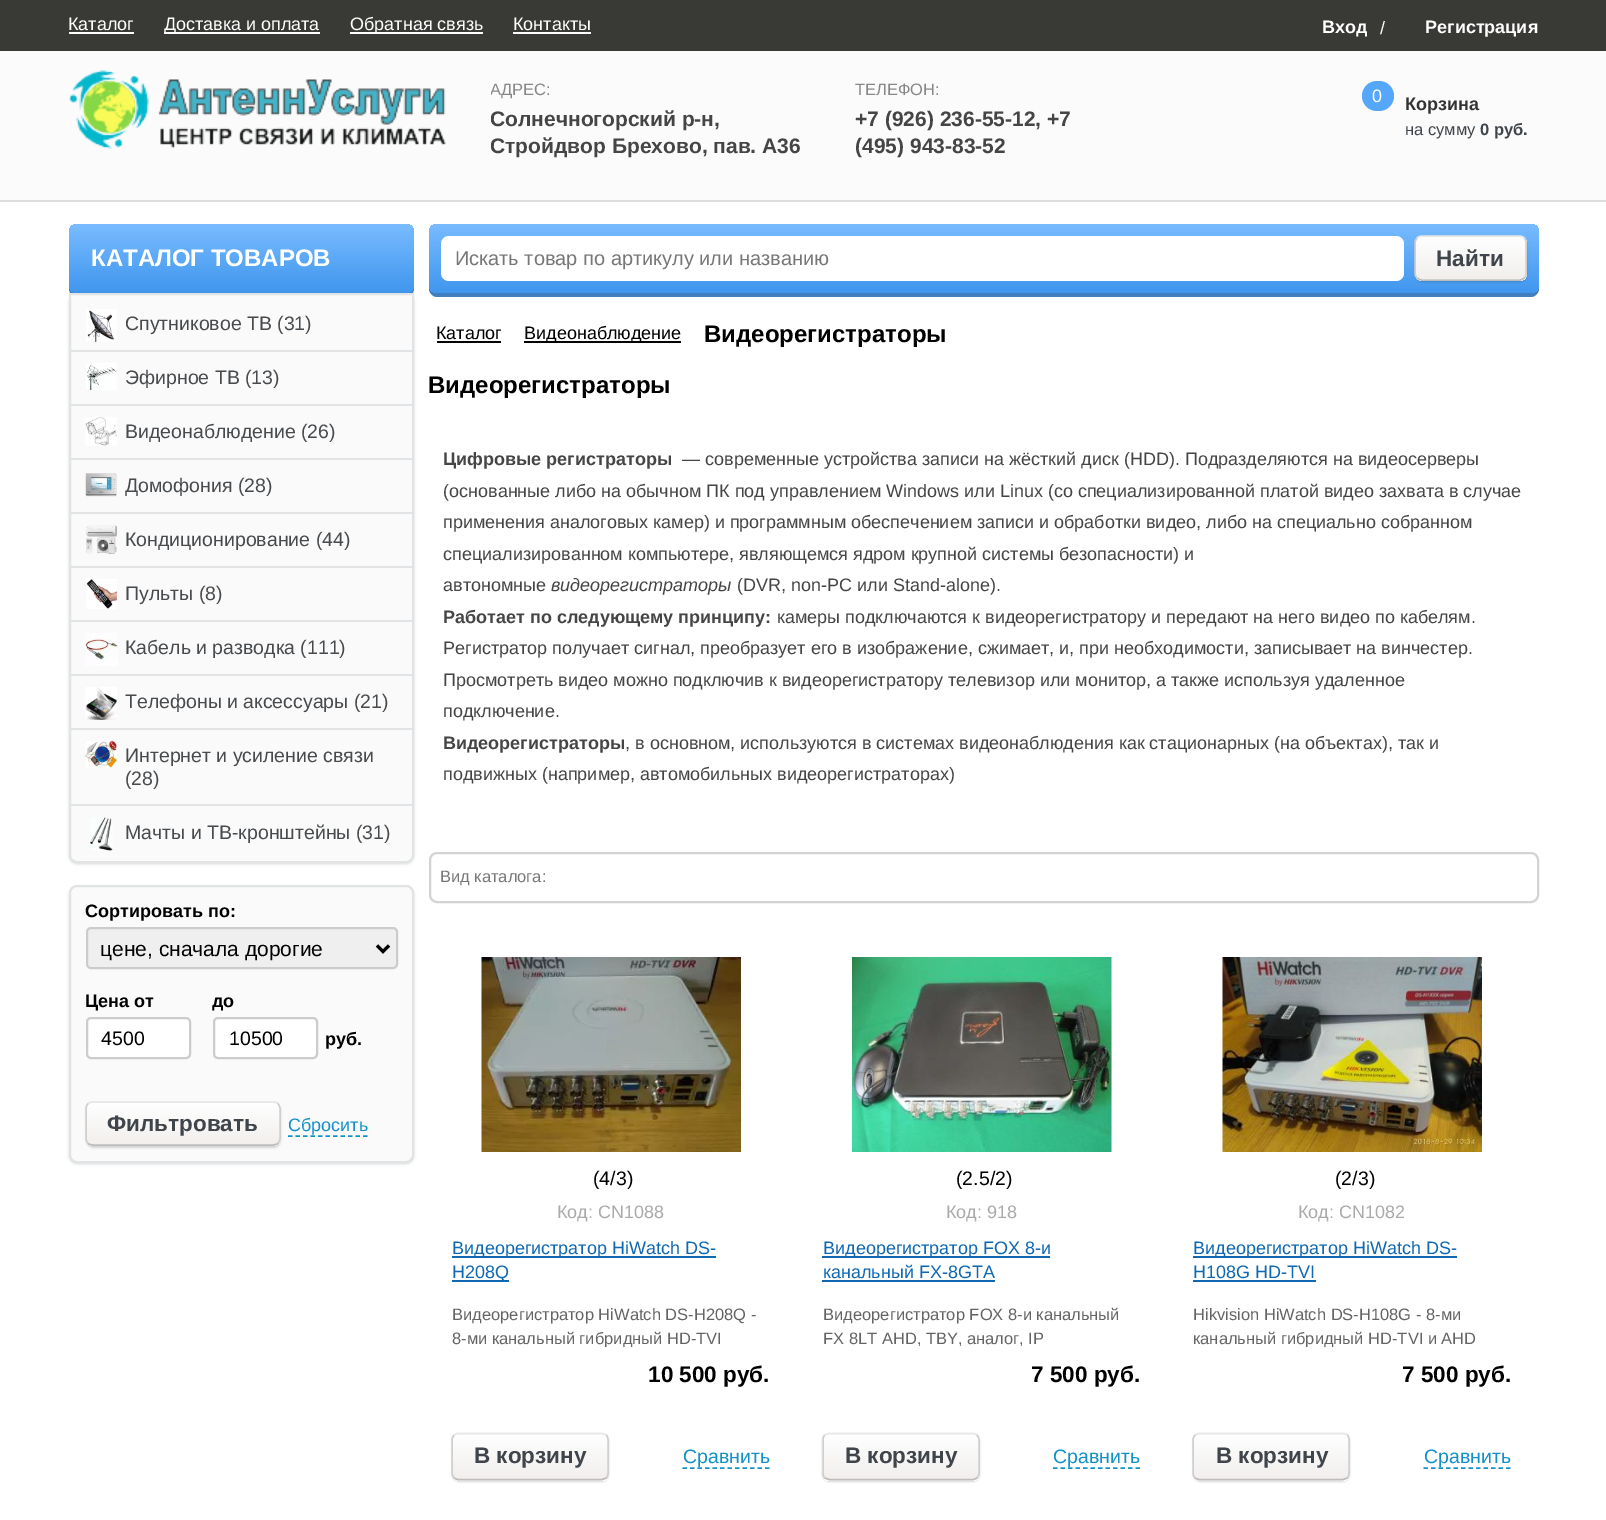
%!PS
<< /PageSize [1606 1520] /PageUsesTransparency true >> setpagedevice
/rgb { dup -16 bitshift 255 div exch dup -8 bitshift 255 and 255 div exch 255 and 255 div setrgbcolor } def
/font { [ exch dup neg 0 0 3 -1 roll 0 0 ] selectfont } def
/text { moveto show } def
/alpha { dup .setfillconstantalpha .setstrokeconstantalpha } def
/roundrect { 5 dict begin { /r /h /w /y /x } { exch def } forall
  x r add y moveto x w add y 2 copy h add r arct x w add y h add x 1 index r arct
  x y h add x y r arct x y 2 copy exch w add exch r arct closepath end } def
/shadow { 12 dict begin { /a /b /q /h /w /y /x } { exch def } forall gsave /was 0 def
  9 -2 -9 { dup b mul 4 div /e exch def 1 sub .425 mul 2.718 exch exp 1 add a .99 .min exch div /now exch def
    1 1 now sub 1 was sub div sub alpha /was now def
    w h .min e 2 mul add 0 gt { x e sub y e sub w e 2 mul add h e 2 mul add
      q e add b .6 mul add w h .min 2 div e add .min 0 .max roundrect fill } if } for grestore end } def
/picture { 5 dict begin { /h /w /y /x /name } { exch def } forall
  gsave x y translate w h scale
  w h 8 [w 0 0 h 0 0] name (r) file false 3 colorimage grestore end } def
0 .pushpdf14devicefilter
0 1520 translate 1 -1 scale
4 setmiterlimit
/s1 { /LiberationSans-Regular 18 font 16#FFFFFF rgb } def
/s2 { /LiberationSans-Bold 18 font 16#FFFFFF rgb } def
/s3 { /LiberationSans-Regular 16.5 font 16#878787 rgb } def
/s4 { /LiberationSans-Bold 21 font 16#454545 rgb } def
/s5 { /LiberationSans-Bold 18 font 16#333333 rgb } def
/s6 { /LiberationSans-Regular 16.5 font 16#3F454B rgb } def
/s7 { /LiberationSans-Bold 16.5 font 16#3F454B rgb } def
/s8 { /LiberationSans-Bold 24 font 16#FFFFFF rgb } def
/s9 { /LiberationSans-Regular 19.5 font 16#484B4E rgb } def
/s10 { /LiberationSans-Bold 18 font 16#000000 rgb } def
/s11 { /LiberationSans-Regular 21 font 16#000000 rgb } def
/s12 { /LiberationSans-Regular 19.5 font 16#000000 rgb } def
/s13 { /LiberationSans-Bold 22.5 font 16#3F454B rgb } def
/s14 { /LiberationSans-Regular 18 font 16#1391C7 rgb } def
/s15 { /LiberationSans-Regular 20 font 16#777777 rgb } def
/s16 { /LiberationSans-Regular 18 font 16#000000 rgb } def
/s17 { /LiberationSans-Bold 24 font 16#000000 rgb } def
/s18 { /LiberationSans-Bold 18 font 16#454545 rgb } def
/s19 { /LiberationSans-Regular 18 font 16#454545 rgb } def
/s20 { /LiberationSans-Italic 18 font 16#454545 rgb } def
/s21 { /LiberationSans-Regular 16.5 font 16#777777 rgb } def
/s22 { /LiberationSans-Regular 18 font 16#AAAAAA rgb } def
/s23 { /LiberationSans-Regular 18 font 16#0F68B1 rgb } def
/s24 { /LiberationSans-Regular 16.5 font 16#646464 rgb } def
/s25 { /LiberationSans-Bold 22.5 font 16#000000 rgb } def
/s26 { /LiberationSans-Regular 19.5 font 16#1391C7 rgb } def
16#FFFFFF rgb
0 0 1606 1520 rectfill
16#FBFBFB rgb
0 51 1606 149 rectfill
16#DFDCDC rgb
0 200 1606 2 rectfill
16#393936 rgb
0 0 1606 51 rectfill
s1
(Каталог) 68 30 text
69 32 65 2 rectfill
164 32 156 2 rectfill
(Доставка и оплата) 164 30 text
350 32 133 2 rectfill
(Обратная связь) 350 30 text
(Контакты) 513 30 text
513 32 78 2 rectfill
s2
(Вход) 1322 33 text
s1
(/) 1380 34 text
s2
(Регистрация) 1425 33 text
(pic1.raw) 69 70 377 79 picture
gsave
491 81 619 104 rectclip
s3
(АДРЕС:) 490 95 text
s4
(Солнечногорский р-н,) 490 126 text
(Стройдвор Брехово, пав. А36) 490 153 text
grestore
s3
(ТЕЛЕФОН:) 855 95 text
s4
(+7 \(926\) 236-55-12, +7) 855 126 text
(\(495\) 943-83-52) 855 153 text
16#56A7FA rgb
1362 81 32 30 15 roundrect fill
s1
(0) 1372 102 text
s5
(Корзина) 1405 110 text
s6
(на сумму) 1405 135 text
s7
(0 руб.) 1480 135 text
16#417EBD rgb
69 285 moveto 69 289 lineto 69 293 73 297 77 297 curveto 406 297 lineto 410 297 414 293 414 289 curveto 414 285 lineto 414 289 411 292 406 292 curveto 76 292 lineto 72 292 69 289 69 285 curveto closepath fill
gsave 69 224 345 69 8 roundrect clip newpath
<< /ShadingType 2 /ColorSpace /DeviceRGB /Coords [242 224 242 293] /Extend [true true] /Function << /FunctionType 3 /Domain [0 1] /Functions [<< /FunctionType 2 /Domain [0 1] /C0 [0.478 0.737 1] /C1 [0.376 0.671 0.973] /N 1 >> << /FunctionType 2 /Domain [0 1] /C0 [0.376 0.671 0.973] /C1 [0.251 0.588 0.933] /N 1 >>] /Bounds [0.44] /Encode [0 1 0 1] >> >> shfill grestore
s8
(КАТАЛОГ ТОВАРОВ) 91 266 text
16#3F454B rgb
69 294 345 570 8 1.5 0.2 shadow
16#FAFAFA rgb
70 294 moveto 413 294 lineto 413 855 lineto 413 859 410 862 406 862 curveto 77 862 lineto 73 862 70 859 70 855 curveto closepath gsave fill grestore
16#E1E3E4 rgb
2 setlinewidth
stroke
71 350 342 2 rectfill
(pic2.raw) 86 309 31 33 picture
s9
(Спутниковое ТВ \(31\)) 125 330 text
16#E1E3E4 rgb
71 404 342 2 rectfill
(pic3.raw) 86 363 31 27 picture
s9
(Эфирное ТВ \(13\)) 125 384 text
16#E1E3E4 rgb
71 458 342 2 rectfill
(pic4.raw) 85 417 32 29 picture
s9
(Видеонаблюдение \(26\)) 125 438 text
16#E1E3E4 rgb
71 512 342 2 rectfill
(pic5.raw) 85 473 32 24 picture
s9
(Домофония \(28\)) 125 492 text
16#E1E3E4 rgb
71 566 342 2 rectfill
(pic6.raw) 85 525 32 29 picture
s9
(Кондиционирование \(44\)) 125 546 text
16#E1E3E4 rgb
71 620 342 2 rectfill
(pic7.raw) 86 579 31 30 picture
s9
(Пульты \(8\)) 125 600 text
16#E1E3E4 rgb
71 674 342 2 rectfill
(pic8.raw) 86 633 32 33 picture
s9
(Кабель и разводка \(111\)) 125 654 text
16#E1E3E4 rgb
71 728 342 2 rectfill
(pic9.raw) 85 687 32 33 picture
s9
(Телефоны и аксессуары \(21\)) 125 708 text
16#E1E3E4 rgb
71 804 342 2 rectfill
(pic10.raw) 85 741 32 27 picture
s9
(Интернет и усиление связи) 125 762 text
(\(28\)) 125 785 text
(pic11.raw) 90 817 23 34 picture
(Мачты и ТВ-кронштейны \(31\)) 125 839 text
16#3F454B rgb
69 887 345 277 8 1.5 0.2 shadow
16#FAFAFA rgb
70 886 343 276 7 roundrect gsave fill grestore
16#E1E3E4 rgb
stroke
s10
(Сортировать по:) 85 917 text
16#EFEFEF rgb
87 928 310 40 4 roundrect gsave fill grestore
16#CCCCCC rgb
stroke
16#000000 rgb
3 setlinewidth
377 945.5 moveto 383 951.5 lineto 389 945.5 lineto stroke
s11
(цене, сначала дорогие) 100 956 text
s10
(Цена от) 85 1007 text
16#FFFFFF rgb
87 1018 103 40 4 roundrect gsave fill grestore
16#CCCCCC rgb
2 setlinewidth
stroke
s12
(4500) 101 1045 text
s10
(до) 212 1007 text
16#FFFFFF rgb
214 1018 103 40 4 roundrect gsave fill grestore
16#CCCCCC rgb
stroke
s12
(10500) 229 1045 text
s10
(руб.) 325 1045 text
86 1103 195 45 8 1 0.15 shadow
gsave
86 1101 195 45 8 roundrect clip newpath
gsave 86 1101 moveto 281 1101 lineto 281 1103 lineto 86 1103 lineto closepath clip newpath
<< /ShadingType 2 /ColorSpace /DeviceRGB /Coords [183 1061 183 1103] /Extend [true true] /Function << /FunctionType 2 /Domain [0 1] /C0 [0.996 1 1] /C1 [0.949 0.937 0.929] /N 1 >> >> shfill grestore
gsave 86 1103 moveto 281 1103 lineto 281 1145 lineto 86 1145 lineto closepath clip newpath
<< /ShadingType 2 /ColorSpace /DeviceRGB /Coords [183 1103 183 1145] /Extend [true true] /Function << /FunctionType 2 /Domain [0 1] /C0 [0.996 1 1] /C1 [0.949 0.937 0.929] /N 1 >> >> shfill grestore
gsave 86 1145 moveto 281 1145 lineto 281 1146 lineto 86 1146 lineto closepath clip newpath
<< /ShadingType 2 /ColorSpace /DeviceRGB /Coords [183 1145 183 1187] /Extend [true true] /Function << /FunctionType 2 /Domain [0 1] /C0 [0.996 1 1] /C1 [0.949 0.937 0.929] /N 1 >> >> shfill grestore
grestore
16#E8E7E7 rgb
1.5 setlinewidth
88 1103.5 moveto 89.5 1102.5 91 1102 93 1102 curveto 273 1102 lineto 275 1102 276.5 1102.5 278 1103.5 curveto stroke
16#D0CFCF rgb
278 1103.5 moveto 279 1105 280 1106.5 280 1108.5 curveto 280 1138.5 lineto 280 1140.5 279 1142 278 1143.5 curveto stroke
16#BCBCBC rgb
278 1143.5 moveto 276.5 1144.5 275 1145 273 1145 curveto 93 1145 lineto 91 1145 89.5 1144.5 88 1143.5 curveto stroke
16#D0CFCF rgb
88 1143.5 moveto 87 1142 86 1140.5 86 1138.5 curveto 86 1108.5 lineto 86 1106.5 87 1105 88 1103.5 curveto stroke
s13
(Фильтровать) 107 1131 text
16#1391C7 rgb
[4.5 3] 0 setdash
288 1136 moveto 367.5 1136 lineto stroke
s14
(Сбросить) 288 1131 text
16#417EBD rgb
429 285 moveto 429 289 lineto 429 293 433 297 437 297 curveto 1531 297 lineto 1535 297 1539 293 1539 289 curveto 1539 285 lineto 1539 289 1536 292 1532 292 curveto 436 292 lineto 432 292 429 289 429 285 curveto closepath fill
gsave 429 224 1110 69 8 roundrect clip newpath
<< /ShadingType 2 /ColorSpace /DeviceRGB /Coords [984 223 984 293] /Extend [true true] /Function << /FunctionType 3 /Domain [0 1] /Functions [<< /FunctionType 2 /Domain [0 1] /C0 [0.478 0.737 1] /C1 [0.376 0.671 0.973] /N 1 >> << /FunctionType 2 /Domain [0 1] /C0 [0.376 0.671 0.973] /C1 [0.251 0.588 0.933] /N 1 >>] /Bounds [0.44] /Encode [0 1 0 1] >> >> shfill grestore
16#FFFFFF rgb
441 236 963 45 8 roundrect fill
s15
(Искать товар по артикулу или названию) 455 265 text
16#000000 rgb
1415 237 112 45 8 1 0.15 shadow
gsave
1415 236 112 45 8 roundrect clip newpath
gsave 1415 237 moveto 1527 237 lineto 1527 279 lineto 1415 279 lineto closepath clip newpath
<< /ShadingType 2 /ColorSpace /DeviceRGB /Coords [1471 237 1471 279] /Extend [true true] /Function << /FunctionType 2 /Domain [0 1] /C0 [0.996 1 1] /C1 [0.949 0.937 0.929] /N 1 >> >> shfill grestore
gsave 1415 279 moveto 1527 279 lineto 1527 281 lineto 1415 281 lineto closepath clip newpath
<< /ShadingType 2 /ColorSpace /DeviceRGB /Coords [1471 279 1471 321] /Extend [true true] /Function << /FunctionType 2 /Domain [0 1] /C0 [0.996 1 1] /C1 [0.949 0.937 0.929] /N 1 >> >> shfill grestore
grestore
16#E8E7E7 rgb
[] 0 setdash
1417 238 moveto 1418.5 237 1420 236 1422 236 curveto 1519.5 236 lineto 1521.5 236 1523 237 1524.5 238 curveto stroke
16#D0CFCF rgb
1524.5 238 moveto 1525.5 239.5 1526 241 1526 243 curveto 1526 273 lineto 1526 275 1525.5 276.5 1524.5 278 curveto stroke
16#BCBCBC rgb
1524.5 278 moveto 1523 279 1521.5 280 1519.5 280 curveto 1422 280 lineto 1420 280 1418.5 279 1417 278 curveto stroke
16#D0CFCF rgb
1417 278 moveto 1416 276.5 1415 275 1415 273 curveto 1415 243 lineto 1415 241 1416 239.5 1417 238 curveto stroke
s13
(Найти) 1436 266 text
s16
(Каталог) 436 339 text
437 341 64 2 rectfill
524 341 157 2 rectfill
(Видеонаблюдение) 524 339 text
s17
(Видеорегистраторы) 704 342 text
(Видеорегистраторы) 428 393 text
s18
(Цифровые регистраторы) 443 465 text
s19
(— современные устройства записи на жёсткий диск \(HDD\). Подразделяются на видеосерверы) 682 465 text
(\(основанные либо на обычном ПК под управлением Windows или Linux \(со специализированной платой видео захвата в случае) 443 497 text
(применения аналоговых камер\) и программным обеспечением записи и обработки видео, либо на специально собранном) 443 528 text
(специализированном компьютере, являющемся ядром крупной системы безопасности\) и) 443 560 text
(автономные) 443 591 text
s20
(видеорегистраторы) 551 591 text
s19
(\(DVR, non-PC или Stand-alone\).) 737 591 text
s18
(Работает по следующему принципу:) 443 623 text
s19
(камеры подключаются к видеорегистратору и передают на него видео по кабелям.) 777 623 text
(Регистратор получает сигнал, преобразует его в изображение, сжимает, и, при необходимости, записывает на винчестер.) 443 654 text
(Просмотреть видео можно подключив к видеорегистратору телевизор или монитор, а также используя удаленное) 443 686 text
(подключение.) 443 717 text
s18
(Видеорегистраторы) 443 749 text
s19
(, в основном, используются в системах видеонаблюдения как стационарных \(на объектах\), так и) 625 749 text
(подвижных \(например, автомобильных видеорегистраторах\)) 443 780 text
16#D3D3D3 rgb
2 setlinewidth
430 853 1108 49 7 roundrect stroke
s21
(Вид каталога:) 440 882 text
(pic12.raw) 481 957 260 195 picture
s12
(\(4/3\)) 593 1185 text
s22
(Код: CN1088) 557 1218 text
16#0F68B1 rgb
452 1256 264 2 rectfill
(Видеорегистратор HiWatch DS-) 452 1254 text
452 1280 57 2 rectfill
(H208Q) 452 1278 text
s24
(Видеорегистратор HiWatch DS-H208Q -) 452 1320 text
gsave
452 1302 318 45 rectclip
(8-ми канальный гибридный HD-TVI) 452 1344 text
grestore
s25
(10 500 руб.) 648 1382 text
452 1434 157 48 8 1 0.15 shadow
gsave
452 1433 157 48 8 roundrect clip newpath
gsave 452 1434 moveto 609 1434 lineto 609 1479 lineto 452 1479 lineto closepath clip newpath
<< /ShadingType 2 /ColorSpace /DeviceRGB /Coords [530 1434 530 1479] /Extend [true true] /Function << /FunctionType 2 /Domain [0 1] /C0 [0.996 1 1] /C1 [0.949 0.937 0.929] /N 1 >> >> shfill grestore
gsave 452 1479 moveto 609 1479 lineto 609 1481 lineto 452 1481 lineto closepath clip newpath
<< /ShadingType 2 /ColorSpace /DeviceRGB /Coords [530 1479 530 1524] /Extend [true true] /Function << /FunctionType 2 /Domain [0 1] /C0 [0.996 1 1] /C1 [0.949 0.937 0.929] /N 1 >> >> shfill grestore
grestore
16#E8E7E7 rgb
1.5 setlinewidth
454 1435 moveto 455.5 1434 457 1433.5 458.5 1433.5 curveto 602 1433.5 lineto 606.5 1435 lineto stroke
16#D0CFCF rgb
606.5 1435 moveto 607.5 1436.5 608 1438 608 1440 curveto 608 1473 lineto 608 1475 607.5 1476.5 606.5 1478 curveto stroke
16#BCBCBC rgb
606.5 1478 moveto 602 1479.5 lineto 458.5 1479.5 lineto 457 1479.5 455.5 1479 454 1478 curveto stroke
16#D0CFCF rgb
454 1478 moveto 453 1476.5 452 1475 452 1473 curveto 452 1440 lineto 452 1438 453 1436.5 454 1435 curveto stroke
s13
(В корзину) 474 1463 text
16#1391C7 rgb
[4.5 3] 0 setdash
682.5 1468 moveto 769.5 1468 lineto stroke
s26
(Сравнить) 683 1463 text
(pic13.raw) 852 957 260 195 picture
s12
(\(2.5/2\)) 956 1185 text
s22
(Код: 918) 946 1218 text
16#0F68B1 rgb
822 1256 228 2 rectfill
(Видеорегистратор FOX 8-и) 823 1254 text
(канальный FX-8GTA) 823 1278 text
822 1280 173 2 rectfill
s24
(Видеорегистратор FOX 8-и канальный) 823 1320 text
(FX 8LT AHD, TBY, аналог, IP) 823 1344 text
s25
(7 500 руб.) 1031 1382 text
822 1434 158 48 8 1 0.15 shadow
gsave
822 1433 158 48 8 roundrect clip newpath
gsave 822 1434 moveto 980 1434 lineto 980 1479 lineto 822 1479 lineto closepath clip newpath
<< /ShadingType 2 /ColorSpace /DeviceRGB /Coords [901 1434 901 1479] /Extend [true true] /Function << /FunctionType 2 /Domain [0 1] /C0 [0.996 1 1] /C1 [0.949 0.937 0.929] /N 1 >> >> shfill grestore
gsave 822 1479 moveto 980 1479 lineto 980 1481 lineto 822 1481 lineto closepath clip newpath
<< /ShadingType 2 /ColorSpace /DeviceRGB /Coords [901 1479 901 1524] /Extend [true true] /Function << /FunctionType 2 /Domain [0 1] /C0 [0.996 1 1] /C1 [0.949 0.937 0.929] /N 1 >> >> shfill grestore
grestore
16#E8E7E7 rgb
[] 0 setdash
824.5 1435 moveto 829 1433.5 lineto 972.5 1433.5 lineto 974 1433.5 975.5 1434 977 1435 curveto stroke
16#D0CFCF rgb
977 1435 moveto 978 1436.5 979 1438 979 1440 curveto 979 1473 lineto 979 1475 978 1476.5 977 1478 curveto stroke
16#BCBCBC rgb
977 1478 moveto 975.5 1479 974 1479.5 972.5 1479.5 curveto 829 1479.5 lineto 824.5 1478 lineto stroke
16#D0CFCF rgb
824.5 1478 moveto 823.5 1476.5 823 1475 823 1473 curveto 823 1440 lineto 823 1438 823.5 1436.5 824.5 1435 curveto stroke
s13
(В корзину) 845 1463 text
16#1391C7 rgb
[4.5 3] 0 setdash
1053 1468 moveto 1140 1468 lineto stroke
s26
(Сравнить) 1053 1463 text
(pic14.raw) 1222 957 260 195 picture
s12
(\(2/3\)) 1335 1185 text
s22
(Код: CN1082) 1298 1218 text
16#0F68B1 rgb
1193 1256 264 2 rectfill
(Видеорегистратор HiWatch DS-) 1193 1254 text
(H108G HD-TVI) 1193 1278 text
1193 1280 123 2 rectfill
s24
(Hikvision HiWatch DS-H108G - 8-ми) 1193 1320 text
gsave
1193 1302 318 45 rectclip
(канальный гибридный HD-TVI и AHD) 1193 1344 text
grestore
s25
(7 500 руб.) 1402 1382 text
1193 1434 157 48 8 1 0.15 shadow
gsave
1193 1433 157 48 8 roundrect clip newpath
gsave 1193 1434 moveto 1350 1434 lineto 1350 1479 lineto 1193 1479 lineto closepath clip newpath
<< /ShadingType 2 /ColorSpace /DeviceRGB /Coords [1271 1434 1271 1479] /Extend [true true] /Function << /FunctionType 2 /Domain [0 1] /C0 [0.996 1 1] /C1 [0.949 0.937 0.929] /N 1 >> >> shfill grestore
gsave 1193 1479 moveto 1350 1479 lineto 1350 1481 lineto 1193 1481 lineto closepath clip newpath
<< /ShadingType 2 /ColorSpace /DeviceRGB /Coords [1271 1479 1271 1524] /Extend [true true] /Function << /FunctionType 2 /Domain [0 1] /C0 [0.996 1 1] /C1 [0.949 0.937 0.929] /N 1 >> >> shfill grestore
grestore
16#E8E7E7 rgb
[] 0 setdash
1195 1435 moveto 1199.5 1433.5 lineto 1343 1433.5 lineto 1344.5 1433.5 1346 1434 1347.5 1435 curveto stroke
16#D0CFCF rgb
1347.5 1435 moveto 1348.5 1436.5 1349 1438 1349 1440 curveto 1349 1473 lineto 1349 1475 1348.5 1476.5 1347.5 1478 curveto stroke
16#BCBCBC rgb
1347.5 1478 moveto 1343 1479.5 lineto 1199.5 1479.5 lineto 1198 1479.5 1196.5 1479 1195 1478 curveto stroke
16#D0CFCF rgb
1195 1478 moveto 1194 1476.5 1193 1475 1193 1473 curveto 1193 1440 lineto 1193 1438 1194 1436.5 1195 1435 curveto stroke
s13
(В корзину) 1216 1463 text
16#1391C7 rgb
[4.5 3] 0 setdash
1423.5 1468 moveto 1510.5 1468 lineto stroke
s26
(Сравнить) 1424 1463 text
.poppdf14devicefilter showpage
